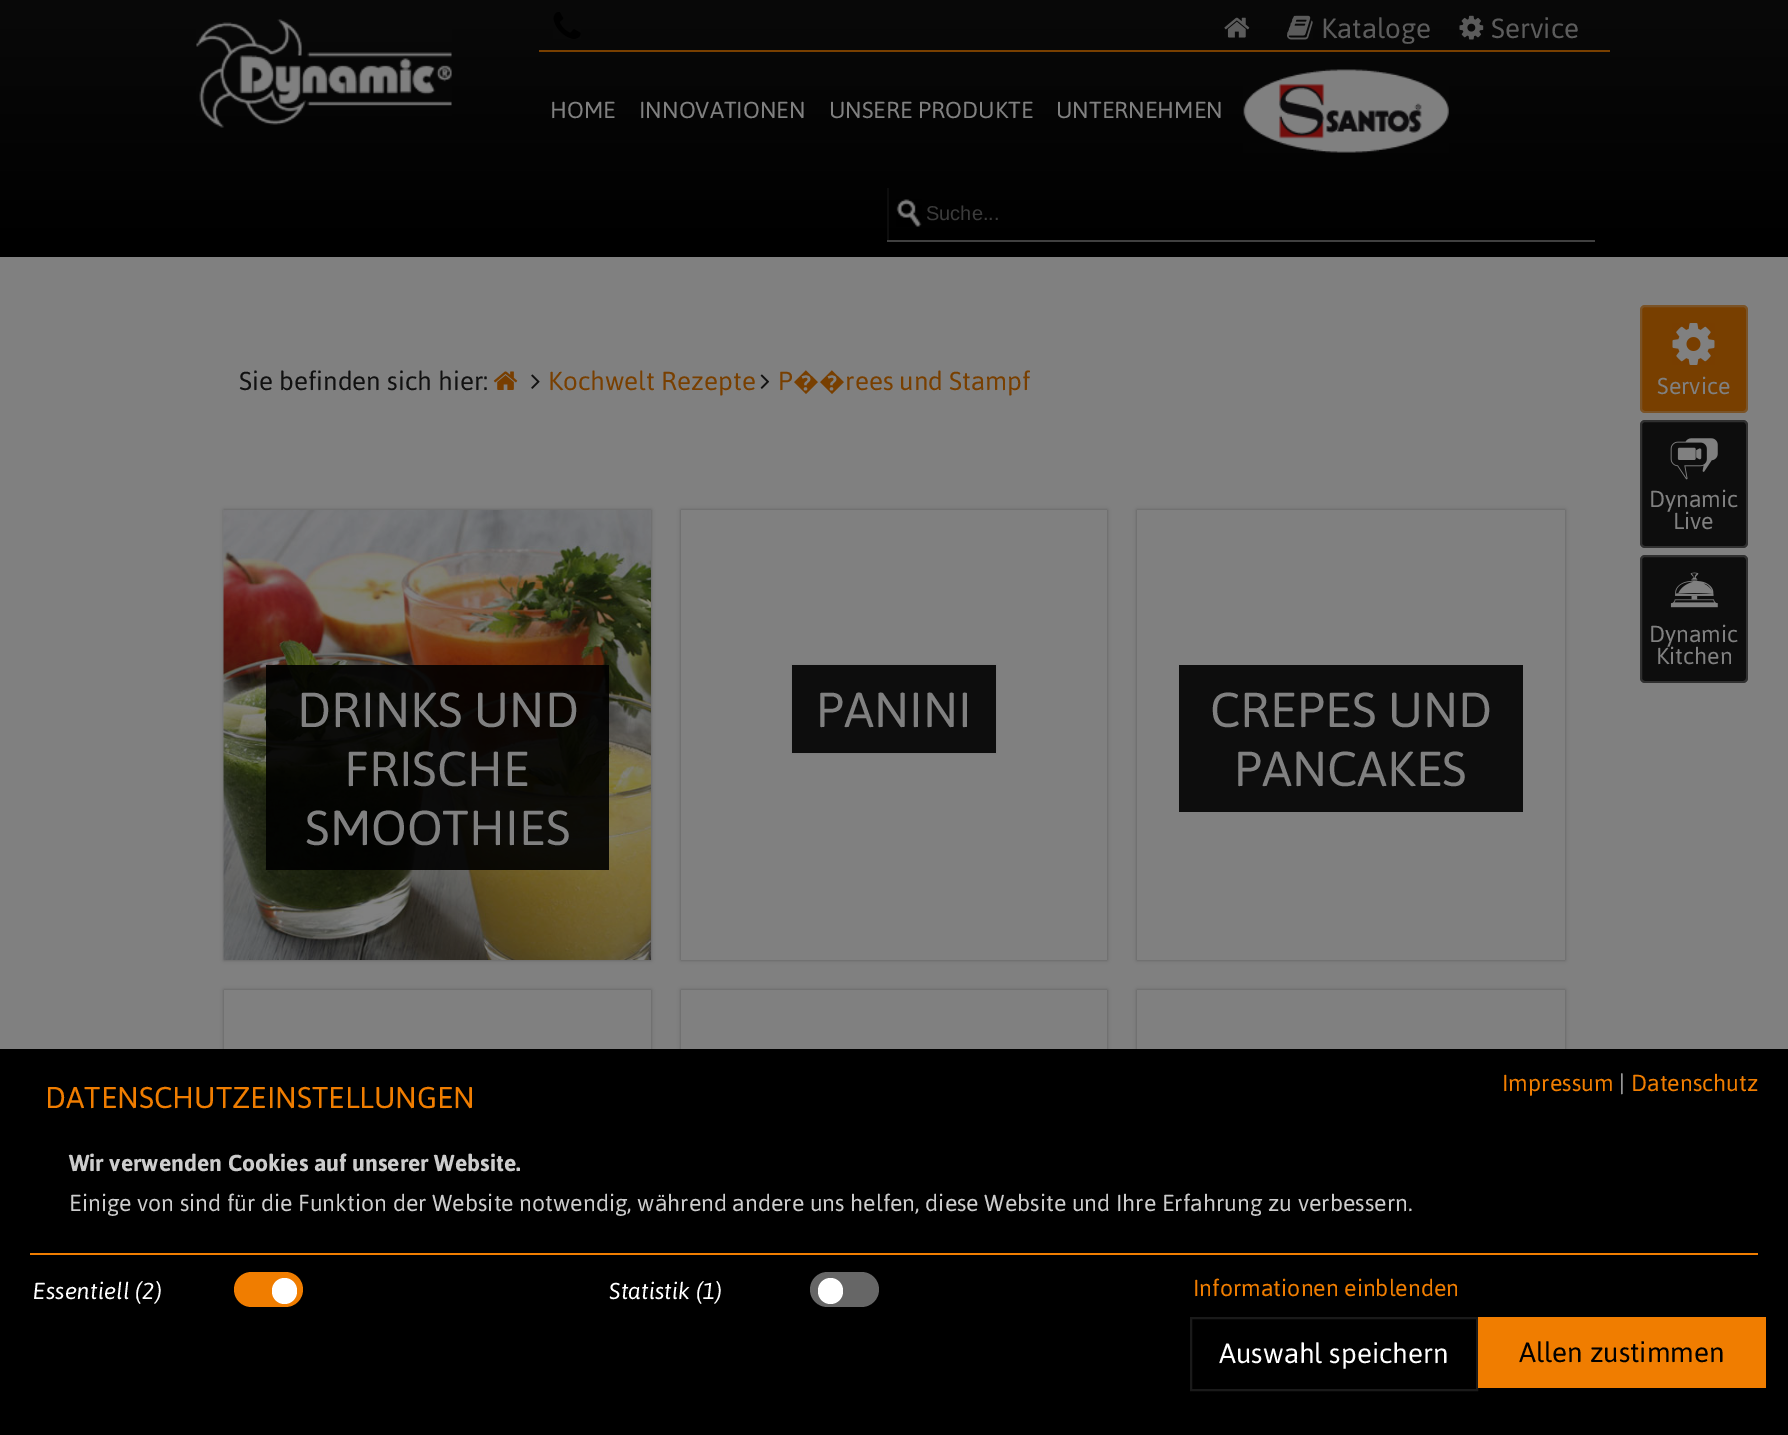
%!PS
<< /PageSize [1788 1435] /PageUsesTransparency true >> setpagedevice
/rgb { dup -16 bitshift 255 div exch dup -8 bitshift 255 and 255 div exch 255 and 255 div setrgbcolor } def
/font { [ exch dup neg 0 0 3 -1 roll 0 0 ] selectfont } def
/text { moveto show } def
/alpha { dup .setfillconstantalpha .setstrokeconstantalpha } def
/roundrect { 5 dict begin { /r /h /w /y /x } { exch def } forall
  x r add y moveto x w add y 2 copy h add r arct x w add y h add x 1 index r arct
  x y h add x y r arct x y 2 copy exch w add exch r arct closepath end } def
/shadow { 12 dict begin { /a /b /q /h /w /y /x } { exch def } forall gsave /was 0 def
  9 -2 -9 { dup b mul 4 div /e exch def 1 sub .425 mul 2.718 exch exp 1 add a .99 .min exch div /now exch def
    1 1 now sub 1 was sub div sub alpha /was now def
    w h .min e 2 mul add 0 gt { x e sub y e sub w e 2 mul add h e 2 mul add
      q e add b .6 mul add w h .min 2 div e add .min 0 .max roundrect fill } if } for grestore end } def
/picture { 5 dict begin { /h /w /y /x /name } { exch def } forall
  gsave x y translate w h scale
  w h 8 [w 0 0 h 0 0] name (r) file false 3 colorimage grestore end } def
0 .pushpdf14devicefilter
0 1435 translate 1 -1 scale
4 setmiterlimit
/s1 { /Asap-Regular 23.05 font 16#808080 rgb } def
/s2 { /Asap-Regular 27.75 font 16#5C5C5C rgb } def
/s3 { /LiberationSans-Regular 20 font 16#3B3B3B rgb } def
/s4 { /Asap-Regular 26 font 16#111111 rgb } def
/s5 { /Asap-Regular 26 font 16#783F00 rgb } def
/s6 { /NotoSans-Regular 26 font 16#783F00 rgb } def
/s7 { /Asap-Regular 49 font 16#808080 rgb } def
/s8 { /Asap-Regular 30 font 16#F07D00 rgb } def
/s9 { /Asap-Regular 23.05 font 16#F07D00 rgb } def
/s10 { /Asap-Regular 23.05 font 16#CCCCCC rgb } def
/s11 { /Asap-Bold 23.05 font 16#CCCCCC rgb } def
/s12 { /Asap-Italic 23.05 font 16#FFFFFF rgb } def
/s13 { /Asap-Regular 27.75 font 16#FFFFFF rgb } def
/s14 { /Asap-Regular 27.75 font 16#000000 rgb } def
16#808080 rgb
0 0 1788 1435 rectfill
gsave 0 0 moveto 1788 0 lineto 1788 257 lineto 0 257 lineto closepath clip newpath
<< /ShadingType 2 /ColorSpace /DeviceRGB /Coords [894 -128 894 257] /Extend [true true] /Function << /FunctionType 2 /Domain [0 1] /C0 [0.051 0.051 0.051] /C1 [0 0 0] /N 1 >> >> shfill grestore
(pic1.raw) 196 19 256 109 picture
16#783F00 rgb
539 50 1071 2 rectfill
s1
(HOME) 550 118 text
(INNOVATIONEN) 639 118 text
(UNSERE PRODUKTE) 829 118 text
(UNTERNEHMEN) 1056 118 text
(pic2.raw) 1243 69 206 84 picture
(pic3.raw) 553 12 28 27 picture
(pic4.raw) 1224 17 26 21 picture
(pic5.raw) 1287 15 26 25 picture
s2
(Kataloge) 1321 38 text
(pic6.raw) 1459 15 25 25 picture
(Service) 1491 38 text
(pic7.raw) 896 199 26 28 picture
16#0D0D0D rgb
887 188 2 52 rectfill
16#404040 rgb
887 240 708 2 rectfill
s3
(Suche...) 926 220 text
s4
(Sie befinden sich hier:) 239 390 text
(pic8.raw) 493 371 25 19 picture
(pic9.raw) 531 374 9 15 picture
s5
(Kochwelt Rezepte) 548 390 text
(pic10.raw) 760 374 10 15 picture
(P) 778 390 text
s6
(��) 793 390 text
s5
(rees und Stampf) 845 390 text
16#000000 rgb
224 510 427 450 0 2 0.3 shadow
(pic11.raw) 223 510 428 450 picture
0.9 alpha
266 665 343 205 rectfill
1 alpha
s7
(DRINKS UND) 297 727 text
(FRISCHE) 344 786 text
(SMOOTHIES) 305 845 text
gsave
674 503 moveto 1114 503 lineto 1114 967 lineto 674 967 lineto closepath 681 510 moveto 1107 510 lineto 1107 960 lineto 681 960 lineto closepath eoclip newpath
16#000000 rgb
681 510 426 450 0 2 0.3 shadow
grestore
16#000000 rgb
792 665 204 88 0 1 0.1 shadow
16#0D0D0D rgb
792 665 204 88 rectfill
s7
(PANINI) 816 727 text
gsave
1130 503 moveto 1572 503 lineto 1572 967 lineto 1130 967 lineto closepath 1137 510 moveto 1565 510 lineto 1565 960 lineto 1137 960 lineto closepath eoclip newpath
16#000000 rgb
1137 510 428 450 0 2 0.3 shadow
grestore
0.9 alpha
16#000000 rgb
1179 665 344 147 rectfill
1 alpha
s7
(CREPES UND) 1210 727 text
(PANCAKES) 1234 786 text
gsave
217 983 moveto 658 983 lineto 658 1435 lineto 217 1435 lineto closepath 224 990 moveto 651 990 lineto 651 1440 lineto 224 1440 lineto closepath eoclip newpath
16#000000 rgb
224 990 427 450 0 2 0.3 shadow
grestore
gsave
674 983 moveto 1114 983 lineto 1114 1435 lineto 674 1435 lineto closepath 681 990 moveto 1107 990 lineto 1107 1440 lineto 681 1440 lineto closepath eoclip newpath
16#000000 rgb
681 990 426 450 0 2 0.3 shadow
grestore
gsave
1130 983 moveto 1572 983 lineto 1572 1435 lineto 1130 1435 lineto closepath 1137 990 moveto 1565 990 lineto 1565 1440 lineto 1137 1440 lineto closepath eoclip newpath
16#000000 rgb
1137 990 428 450 0 2 0.3 shadow
grestore
16#783F00 rgb
1640 305 108 108 5 roundrect fill
0.3 alpha
16#808080 rgb
2 setlinewidth
1641 306 106 106 4 roundrect stroke
1 alpha
(pic12.raw) 1672 323 43 42 picture
s1
(Service) 1657 394 text
16#0D0D0D rgb
1640 420 108 128 5 roundrect fill
0.3 alpha
16#808080 rgb
1641 421 106 126 4 roundrect stroke
1 alpha
(pic13.raw) 1670 438 48 42 picture
(Dynamic) 1649 507 text
(Live) 1673 529 text
16#0D0D0D rgb
1640 555 108 128 5 roundrect fill
0.3 alpha
16#808080 rgb
1641 556 106 126 4 roundrect stroke
1 alpha
(pic14.raw) 1670 572 48 36 picture
(Dynamic) 1649 642 text
(Kitchen) 1656 664 text
16#000000 rgb
0 1049 1788 386 rectfill
s8
(DATENSCHUTZEINSTELLUNGEN) 45 1108 text
s9
(Impressum) 1502 1091 text
s10
(|) 1619 1091 text
s9
(Datenschutz) 1631 1091 text
s11
(Wir verwenden Cookies auf unserer Website.) 69 1171 text
s10
(Einige von sind für die Funktion der Website notwendig, während andere uns helfen, diese Website und Ihre Erfahrung zu verbessern.) 69 1211 text
16#F07D00 rgb
30 1253 1728 2 rectfill
s12
(Essentiell \(2\)) 33 1299 text
16#F07D00 rgb
234 1272 69 35 17.5 roundrect fill
16#FFFFFF rgb
272 1278 25 26 12.5 roundrect fill
(Statistik \(1\)) 609 1299 text
16#666666 rgb
810 1272 69 35 17.5 roundrect fill
16#FFFFFF rgb
818 1278 25 26 12.5 roundrect fill
s9
(Informationen einblenden) 1193 1296 text
16#1A1A1A rgb
1191 1318 286 72 rectstroke
s13
(Auswahl speichern) 1219 1363 text
16#F07D00 rgb
1478 1317 288 71 rectfill
s14
(Allen zustimmen) 1519 1362 text
.poppdf14devicefilter showpage
